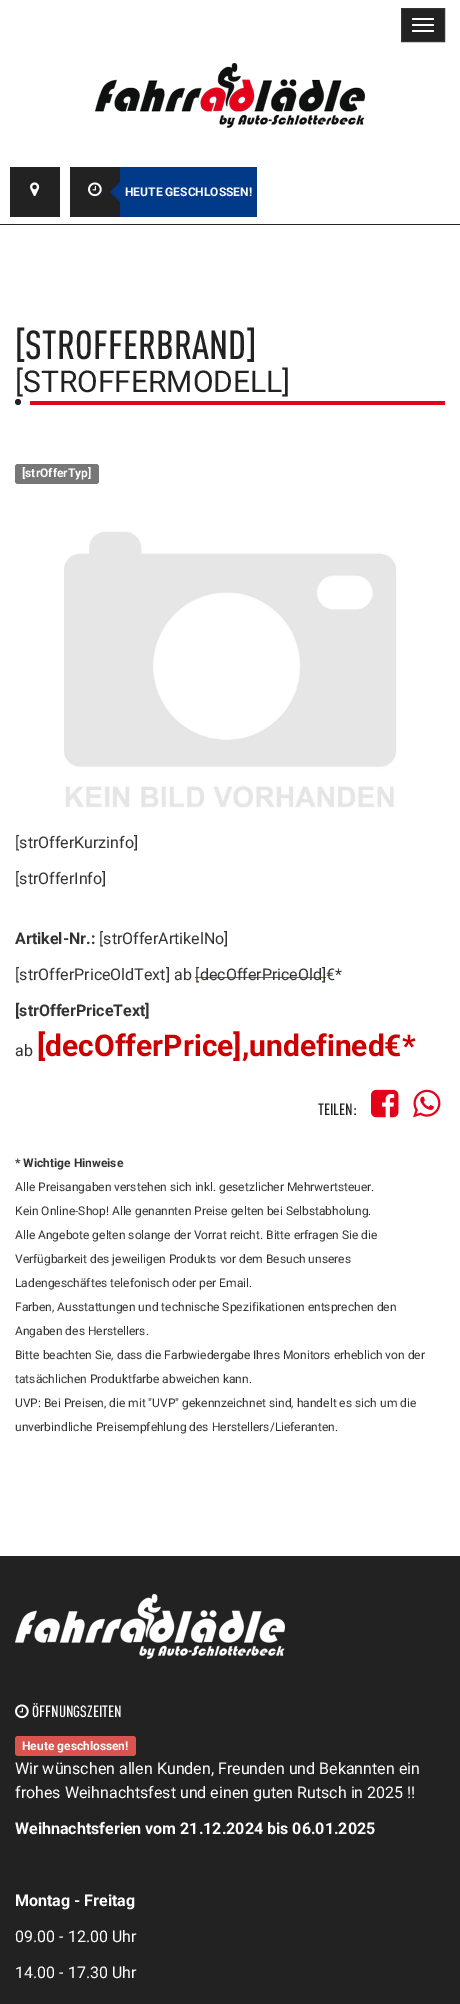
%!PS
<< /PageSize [460 2004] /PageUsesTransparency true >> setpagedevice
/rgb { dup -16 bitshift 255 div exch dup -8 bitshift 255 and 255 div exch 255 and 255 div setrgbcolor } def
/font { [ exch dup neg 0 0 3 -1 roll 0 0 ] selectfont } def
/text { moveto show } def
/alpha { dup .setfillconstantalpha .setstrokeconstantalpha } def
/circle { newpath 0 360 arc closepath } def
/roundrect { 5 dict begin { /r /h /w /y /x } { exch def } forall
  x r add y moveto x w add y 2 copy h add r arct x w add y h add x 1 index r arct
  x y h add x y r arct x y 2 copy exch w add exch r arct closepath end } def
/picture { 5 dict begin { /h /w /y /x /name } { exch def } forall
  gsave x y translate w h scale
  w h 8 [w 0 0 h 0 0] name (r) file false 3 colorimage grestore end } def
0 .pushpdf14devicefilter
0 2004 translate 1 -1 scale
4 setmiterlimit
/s1 { /Roboto-Bold 12 font 16#FFFFFF rgb } def
/s2 { /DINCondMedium-Medium 40 font 16#222222 rgb } def
/s3 { /Roboto-Regular 30 font 16#222222 rgb } def
/s4 { /Roboto-Regular 16 font 16#333333 rgb } def
/s5 { /Roboto-Bold 16 font 16#333333 rgb } def
/s6 { /Roboto-Bold 30 font 16#CC0000 rgb } def
/s7 { /DINCondMedium-Medium 16 font 16#222222 rgb } def
/s8 { /Roboto-Bold 12 font 16#333333 rgb } def
/s9 { /Roboto-Regular 12 font 16#333333 rgb } def
/s10 { /DINCondMedium-Medium 16 font 16#FFFFFF rgb } def
/s11 { /Roboto-Regular 16 font 16#FFFFFF rgb } def
/s12 { /Roboto-Bold 16 font 16#FFFFFF rgb } def
16#FFFFFF rgb
0 0 460 2004 rectfill
16#222222 rgb
401.5 8.5 moveto 444.5 8.5 lineto 444.5 41.5 lineto 401.5 41.5 lineto closepath gsave fill grestore
16#333333 rgb
stroke
16#FFFFFF rgb
412 18 22 2 1 roundrect fill
412 24 22 2 1 roundrect fill
412 30 22 2 1 roundrect fill
(pic1.raw) 95 63 270 65 picture
16#222222 rgb
0 224 460 1 rectfill
10 167 50 50 rectfill
(pic2.raw) 30 182 10 15 picture
70 167 50 50 rectfill
(pic3.raw) 88 182 14 15 picture
16#003A89 rgb
120 167 137 50 rectfill
120 182 moveto 120 202 lineto 110 192 lineto closepath fill
s1
(HEUTE GESCHLOSSEN!) 125 196 text
s2
([STROFFERBRAND]) 15 359 text
s3
([STROFFERMODELL]) 15 392 text
18 402 3 circle fill
16#E3021A rgb
30 401 415 4 rectfill
16#777777 rgb
15 464 84 20 3 roundrect fill
s1
([strOfferTyp]) 22 477 text
(pic4.raw) 64 531 333 277 picture
s4
([strOfferKurzinfo]) 15 848 text
([strOfferInfo]) 15 884 text
s5
(Artikel-Nr.:) 15 944 text
s4
([strOfferArtikelNo]) 99 944 text
([strOfferPriceOldText] ab [decOfferPriceOld]€*) 15 980 text
0.8 alpha
16#CC0000 rgb
195 977 131 1 rectfill
1 alpha
s5
([strOfferPriceText]) 15 1016 text
s4
(ab) 15 1056 text
s6
([decOfferPrice],undefined€*) 37 1056 text
s7
(TEILEN:) 318 1115 text
(pic5.raw) 371 1089 28 29 picture
(pic6.raw) 413 1089 28 29 picture
s8
(* Wichtige Hinweise) 15 1167 text
s9
(Alle Preisangaben verstehen sich inkl. gesetzlicher Mehrwertsteuer.) 15 1191 text
(Kein Online-Shop! Alle genannten Preise gelten bei Selbstabholung.) 15 1215 text
(Alle Angebote gelten solange der Vorrat reicht. Bitte erfragen Sie die) 15 1239 text
(Verfügbarkeit des jeweiligen Produkts vor dem Besuch unseres) 15 1263 text
(Ladengeschäftes telefonisch oder per Email.) 15 1287 text
(Farben, Ausstattungen und technische Spezifikationen entsprechen den) 15 1311 text
(Angaben des Herstellers.) 15 1335 text
(Bitte beachten Sie, dass die Farbwiedergabe Ihres Monitors erheblich von der) 15 1359 text
(tatsächlichen Produktfarbe abweichen kann.) 15 1383 text
(UVP: Bei Preisen, die mit "UVP" gekennzeichnet sind, handelt es sich um die) 15 1407 text
(unverbindliche Preisempfehlung des Herstellers/Lieferanten.) 15 1431 text
16#222222 rgb
0 1556 460 448 rectfill
(pic7.raw) 15 1594 270 65 picture
(pic3.raw) 15 1704 14 15 picture
s10
(ÖFFNUNGSZEITEN) 32 1717 text
16#D9534F rgb
15 1736 121 20 3 roundrect fill
s1
(Heute geschlossen!) 22 1750 text
s11
(Wir wünschen allen Kunden, Freunden und Bekannten ein) 15 1774 text
(frohes Weihnachtsfest und einen guten Rutsch in 2025 !!) 15 1798 text
s12
(Weihnachtsferien vom 21.12.2024 bis 06.01.2025) 15 1834 text
(Montag - Freitag) 15 1906 text
s11
(09.00 - 12.00 Uhr) 15 1942 text
(14.00 - 17.30 Uhr) 15 1978 text
.poppdf14devicefilter showpage
